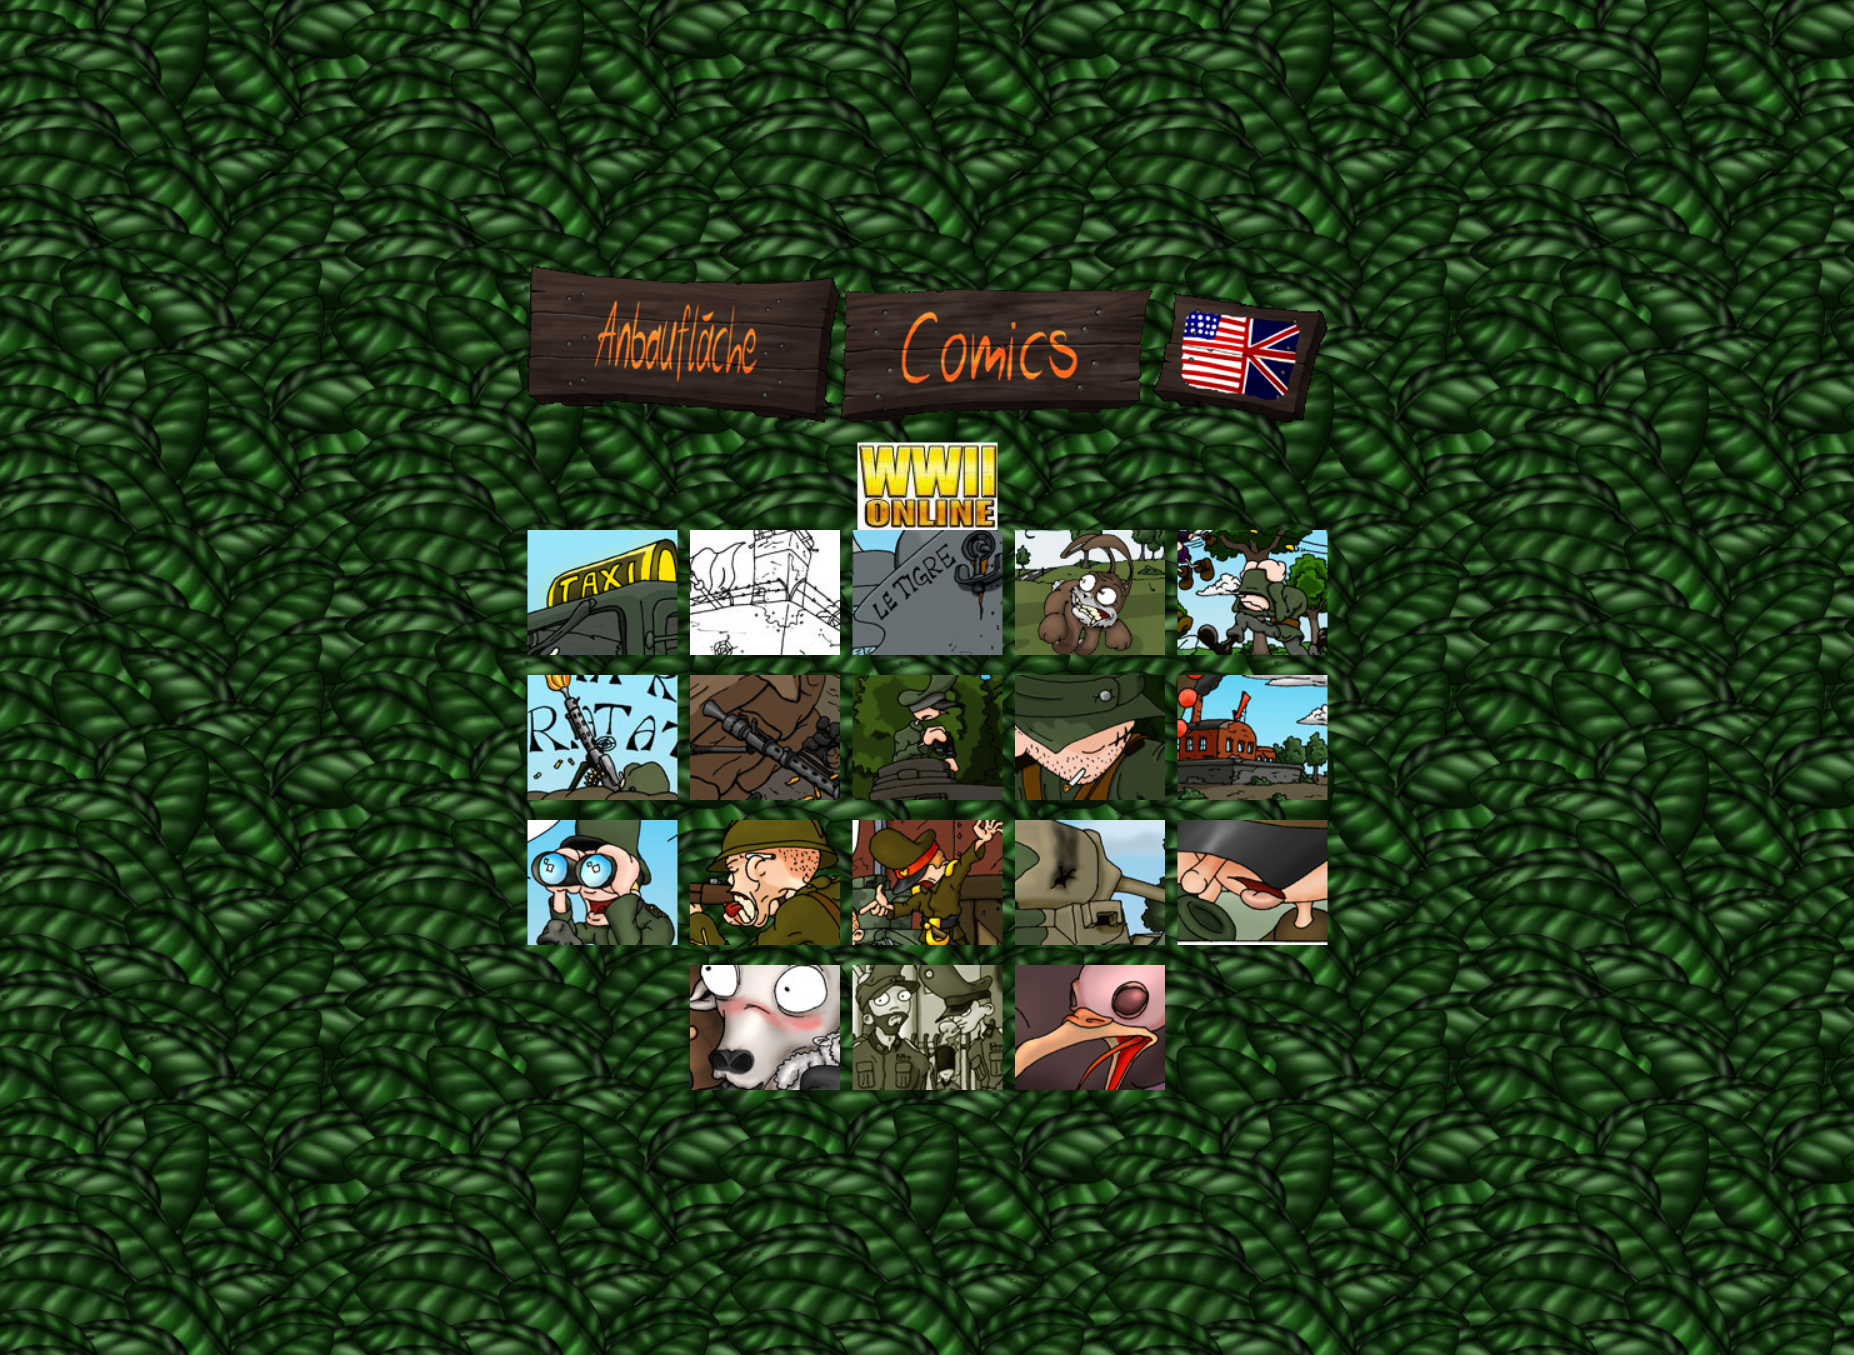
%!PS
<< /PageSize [1854 1355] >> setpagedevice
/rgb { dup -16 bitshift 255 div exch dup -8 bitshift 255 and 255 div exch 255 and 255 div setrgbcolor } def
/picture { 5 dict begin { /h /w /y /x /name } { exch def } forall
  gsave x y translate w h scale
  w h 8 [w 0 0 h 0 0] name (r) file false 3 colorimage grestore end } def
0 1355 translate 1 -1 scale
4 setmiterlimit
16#FFFFFF rgb
0 0 1854 1355 rectfill
(pic1.raw) 0 0 1854 1355 picture
(pic2.raw) 527 265 313 158 picture
(pic3.raw) 840 288 313 135 picture
(pic4.raw) 1152 292 176 131 picture
(pic5.raw) 857 442 141 88 picture
(pic6.raw) 527 530 151 125 picture
(pic7.raw) 690 530 150 125 picture
(pic8.raw) 852 530 151 125 picture
(pic9.raw) 1015 530 150 125 picture
(pic10.raw) 1177 530 151 125 picture
(pic11.raw) 527 675 151 125 picture
(pic12.raw) 690 675 150 125 picture
(pic13.raw) 852 675 151 125 picture
(pic14.raw) 1015 675 150 125 picture
(pic15.raw) 1177 675 151 125 picture
(pic16.raw) 527 820 151 125 picture
(pic17.raw) 690 820 150 125 picture
(pic18.raw) 852 820 151 125 picture
(pic19.raw) 1015 820 150 125 picture
(pic20.raw) 1177 820 151 125 picture
(pic21.raw) 690 965 150 125 picture
(pic22.raw) 852 965 151 125 picture
(pic23.raw) 1015 965 150 125 picture
showpage
